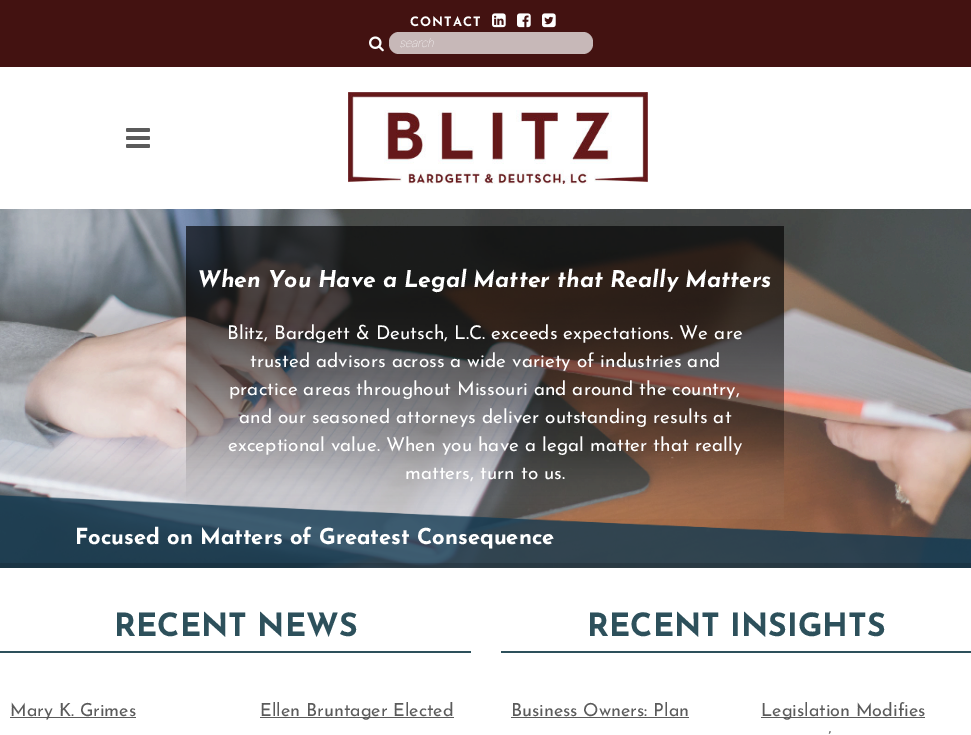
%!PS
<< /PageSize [971 735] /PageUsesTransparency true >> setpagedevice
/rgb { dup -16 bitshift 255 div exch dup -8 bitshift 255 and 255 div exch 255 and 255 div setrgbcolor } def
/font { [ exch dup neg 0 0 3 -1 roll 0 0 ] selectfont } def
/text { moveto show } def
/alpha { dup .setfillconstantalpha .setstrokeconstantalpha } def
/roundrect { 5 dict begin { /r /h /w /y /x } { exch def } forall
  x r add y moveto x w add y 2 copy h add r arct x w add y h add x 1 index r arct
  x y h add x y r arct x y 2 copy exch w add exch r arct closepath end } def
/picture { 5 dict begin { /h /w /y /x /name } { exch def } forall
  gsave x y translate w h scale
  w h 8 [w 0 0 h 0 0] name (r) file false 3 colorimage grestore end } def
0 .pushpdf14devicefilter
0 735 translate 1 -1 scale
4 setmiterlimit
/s1 { /Roboto-ThinItalic 12 font 16#FFFFFF rgb } def
/s2 { /JosefinSans-ThinItalic 23 font 16#FFFFFF rgb } def
/s3 { /JosefinSans-Regular 19 font 16#FFFFFF rgb } def
/s4 { /JosefinSans-Bold 22 font 16#FFFFFF rgb } def
/s5 { /JosefinSans-Bold 32 font 16#2D505B rgb } def
/s6 { /JosefinSans-Regular 18 font 16#5B5B5B rgb } def
16#FFFFFF rgb
0 0 971 735 rectfill
16#431211 rgb
0 0 971 67 rectfill
/JosefinSans-Bold 13 font
16#FFFFFF rgb
410 26 moveto 1 0 (CONTACT) ashow
(pic1.raw) 492 13 14 15 picture
(pic2.raw) 517 13 14 15 picture
(pic3.raw) 542 13 14 15 picture
(pic4.raw) 369 36 15 16 picture
16#C7B8B8 rgb
389 32 204 22 10 roundrect fill
s1
(search) 399 47 text
(pic5.raw) 126 128 24 20 picture
(pic6.raw) 348 92 300 92 picture
(pic7.raw) 0 209 971 359 picture
(pic8.raw) 186 226 598 293 picture
s2
(When You Have a Legal Matter that Really Matters) 197 287 text
s3
(Blitz, Bardgett & Deutsch, L.C. exceeds expectations. We are) 227 339 text
(trusted advisors across a wide variety of industries and) 250 367 text
(practice areas throughout Missouri and around the country,) 229 395 text
(and our seasoned attorneys deliver outstanding results at) 239 423 text
(exceptional value. When you have a legal matter that really) 228 451 text
(matters, turn to us.) 405 479 text
(pic9.raw) 0 495 971 73 picture
s4
(Focused on Matters of Greatest Consequence) 75 544 text
0.15 alpha
16#000000 rgb
0 563 971 5 rectfill
1 alpha
16#2D505B rgb
0 651 471 2 rectfill
s5
(RECENT NEWS) 114 636 text
16#5B5B5B rgb
10 717 126 1 rectfill
s6
(Mary K. Grimes) 10 716 text
260 717 194 1 rectfill
(Ellen Bruntager Elected) 260 716 text
16#2D505B rgb
501 651 470 2 rectfill
s5
(RECENT INSIGHTS) 587 636 text
s6
(Business Owners: Plan) 511 716 text
511 717 178 1 rectfill
761 717 164 1 rectfill
(Legislation Modifies) 761 716 text
(’) 828 744 text
.poppdf14devicefilter showpage
